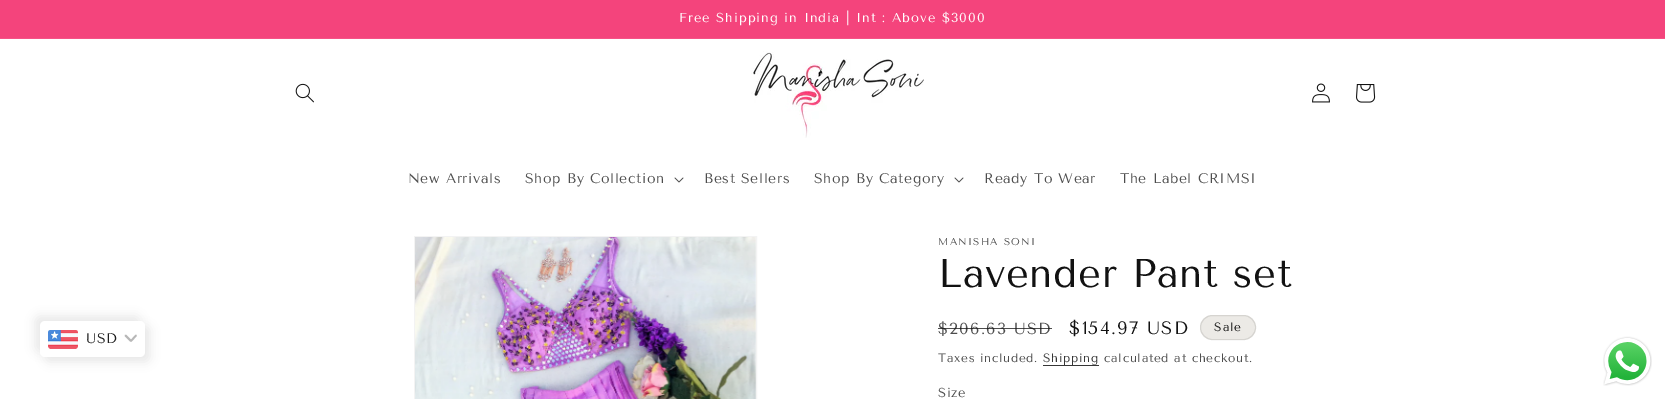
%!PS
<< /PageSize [1665 399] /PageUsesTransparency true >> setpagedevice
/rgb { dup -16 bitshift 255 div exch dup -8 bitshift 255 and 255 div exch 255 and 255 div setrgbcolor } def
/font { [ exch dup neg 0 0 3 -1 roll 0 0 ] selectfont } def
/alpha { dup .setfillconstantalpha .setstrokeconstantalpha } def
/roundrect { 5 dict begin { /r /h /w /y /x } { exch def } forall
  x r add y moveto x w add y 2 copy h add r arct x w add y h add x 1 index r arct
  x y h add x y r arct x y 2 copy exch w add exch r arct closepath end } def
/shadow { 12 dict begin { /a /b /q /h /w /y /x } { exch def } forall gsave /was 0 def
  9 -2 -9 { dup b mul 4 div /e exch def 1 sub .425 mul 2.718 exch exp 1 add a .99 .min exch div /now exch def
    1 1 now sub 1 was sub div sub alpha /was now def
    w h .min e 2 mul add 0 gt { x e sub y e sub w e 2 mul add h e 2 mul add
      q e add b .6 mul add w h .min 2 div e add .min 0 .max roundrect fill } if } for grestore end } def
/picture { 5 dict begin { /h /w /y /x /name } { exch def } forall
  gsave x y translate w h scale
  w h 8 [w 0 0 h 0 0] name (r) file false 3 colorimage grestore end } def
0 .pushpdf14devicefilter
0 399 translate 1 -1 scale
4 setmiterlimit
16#FFFFFF rgb
0 0 1665 399 rectfill
16#F4447C rgb
0 0 1665 38 rectfill
16#F55386 rgb
0 38 1665 1 rectfill
/TenorSans-Regular 13 font
16#FFFFFF rgb
679 22 moveto 1 0 (Free Shipping in India | Int : Above $3000) ashow
(pic1.raw) 295 83 19 20 picture
(pic2.raw) 751 51 173 87 picture
(pic3.raw) 1312 83 18 20 picture
(pic4.raw) 1356 84 20 19 picture
/TenorSans-Regular 14 font
16#4D4D4D rgb
408 183 moveto 0.6 0 (New Arrivals) ashow
525 183 moveto 0.6 0 (Shop By Collection) ashow
(pic5.raw) 674 177 10 6 picture
704 183 moveto 0.6 0 (Best Sellers) ashow
814 183 moveto 0.6 0 (Shop By Category) ashow
(pic5.raw) 954 177 10 6 picture
984 183 moveto 0.6 0 (Ready To Wear) ashow
1120 183 moveto 0.6 0 (The Label CRIMSI) ashow
16#E8E8E8 rgb
35 316 105 36 5 5 1 shadow
45 326 105 36 5 5 1 shadow
16#FFFFFF rgb
40 321 105 36 5 roundrect fill
(pic6.raw) 48 330 30 19 picture
16#1E1E1E rgb
86 343 moveto 0.6 0 (USD) ashow
16#B7B7B7 rgb
1.8 setlinewidth
1 setlinecap
1 setlinejoin
125.5 335.5 moveto 131 341 lineto 136 335.5 lineto stroke
16#F3F3F3 rgb
1 setlinewidth
0 setlinecap
0 setlinejoin
414.5 236.5 342 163 rectstroke
(pic7.raw) 415 237 341 162 picture
/TenorSans-Regular 10 font
16#4D4D4D rgb
938 245 moveto 1.25 0 (MANISHA SONI) ashow
/TenorSans-Regular 40 font
16#121212 rgb
938 287 moveto 0.6 0 (Lavender Pant set) ashow
/TenorSans-Regular 16 font
16#4D4D4D rgb
938 334 moveto 1.25 0 ($206.63 USD) ashow
0.75 alpha
16#121212 rgb
938 328 114 1 rectfill
/TenorSans-Regular 18 font
1 alpha
1069 334 moveto 1.25 0 ($154.97 USD) ashow
16#ECEAE6 rgb
1200 315 56 25 12.5 roundrect fill
0.1 alpha
16#121212 rgb
1200.5 315.5 55 24 12 roundrect stroke
/TenorSans-Regular 12 font
1 alpha
1214 331 moveto 1 0 (Sale) ashow
16#4D4D4D rgb
938 362 moveto 0.7 0 (Taxes included.) ashow
16#363636 rgb
1043 362 moveto 0.7 0 (Shipping) ashow
1043 365 56 1 rectfill
16#4D4D4D rgb
1104 362 moveto 0.7 0 (calculated at checkout.) ashow
/TenorSans-Regular 13 font
938 397 moveto 0.5 0 (Size) ashow
(pic8.raw) 1603 336 49 50 picture
.poppdf14devicefilter showpage
